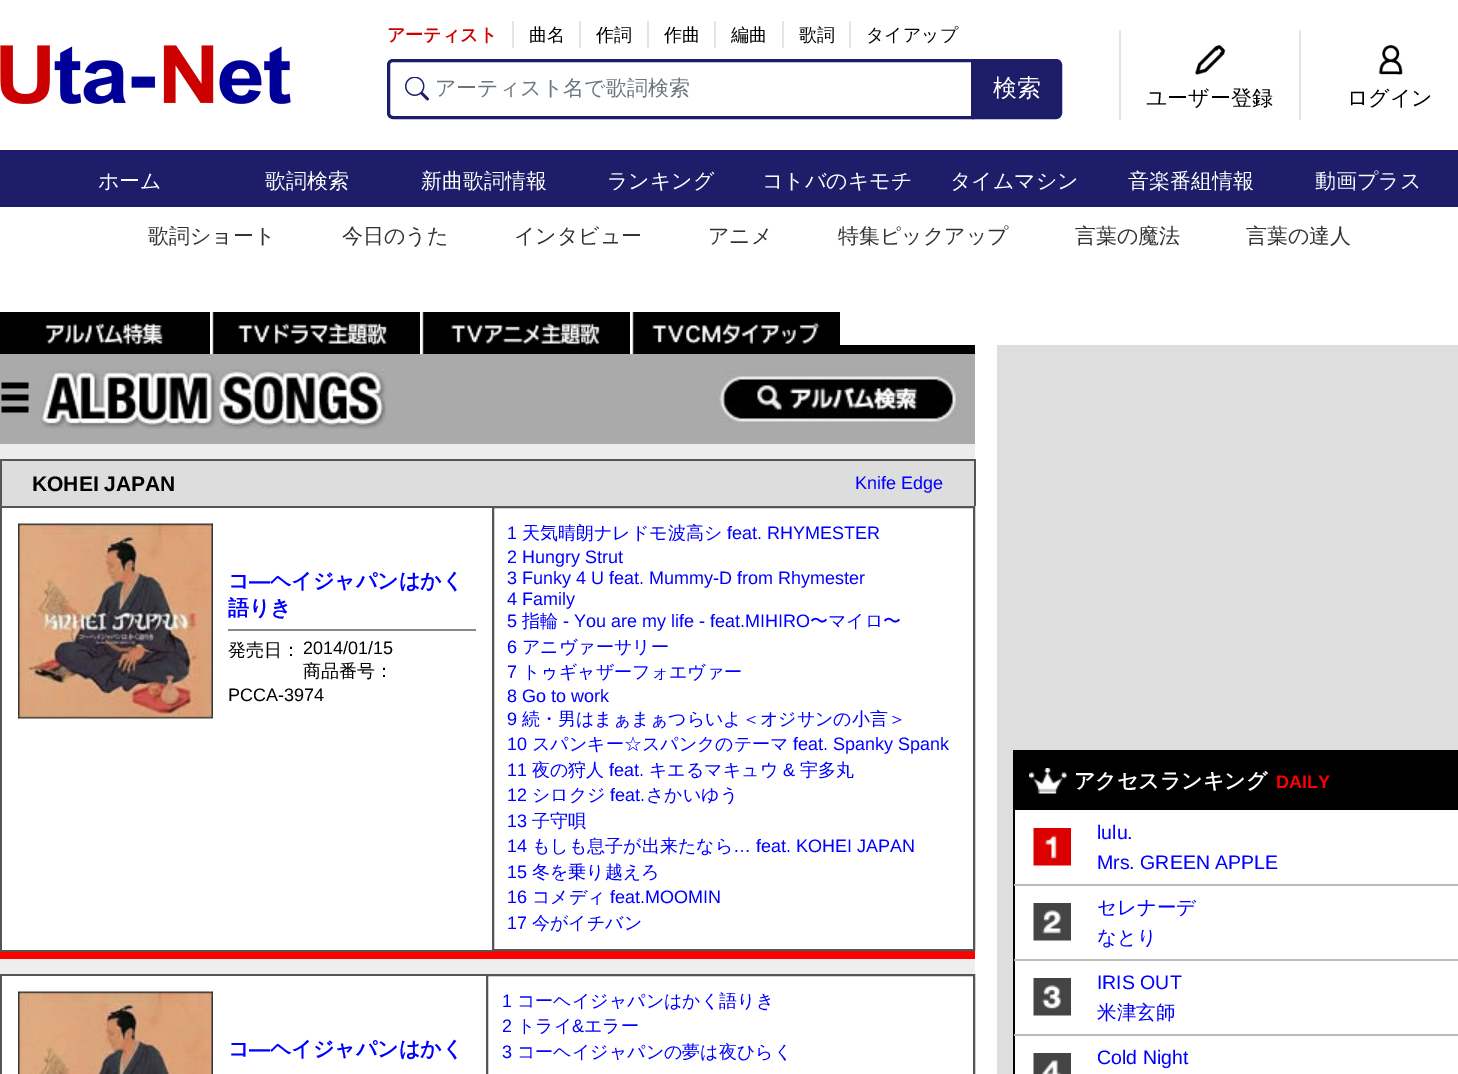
%!PS
<< /PageSize [1458 1074] >> setpagedevice
/rgb { dup -16 bitshift 255 div exch dup -8 bitshift 255 and 255 div exch 255 and 255 div setrgbcolor } def
/font { [ exch dup neg 0 0 3 -1 roll 0 0 ] selectfont } def
/text { moveto show } def
/picture { 5 dict begin { /h /w /y /x /name } { exch def } forall
  gsave x y translate w h scale
  w h 8 [w 0 0 h 0 0] name (r) file false 3 colorimage grestore end } def
0 1074 translate 1 -1 scale
4 setmiterlimit
/s1 { /WenQuanYiZenHei-Bold 18 font 16#CC0000 rgb } def
/s2 { /WenQuanYiZenHei-Medium 18 font 16#000000 rgb } def
/s3 { /WenQuanYiZenHei-Medium 21 font 16#6C757D rgb } def
/s4 { /WenQuanYiZenHei-Medium 24 font 16#FFFFFF rgb } def
/s5 { /WenQuanYiZenHei-Medium 21 font 16#000000 rgb } def
/s6 { /WenQuanYiZenHei-Medium 21 font 16#FFFFFF rgb } def
/s7 { /WenQuanYiZenHei-Medium 21 font 16#333333 rgb } def
/s8 { /LiberationSans-Bold 21 font 16#000000 rgb } def
/s9 { /LiberationSans-Regular 18 font 16#0000FF rgb } def
/s10 { /WenQuanYiZenHei-Bold 21 font 16#0000FF rgb } def
/s11 { /LiberationSans-Bold 21 font 16#0000FF rgb } def
/s12 { /LiberationSans-Regular 18 font 16#000000 rgb } def
/s13 { /WenQuanYiZenHei-Medium 18 font 16#0000FF rgb } def
/s14 { /WenQuanYiZenHei-Bold 21 font 16#FFFFFF rgb } def
/s15 { /LiberationSans-Bold 18 font 16#FF0000 rgb } def
/s16 { /LiberationSans-Regular 19.5 font 16#0000FF rgb } def
/s17 { /WenQuanYiZenHei-Medium 19.5 font 16#0000FF rgb } def
16#FFFFFF rgb
0 0 1458 1074 rectfill
(pic1.raw) 0 45 291 59 picture
16#E5E5E5 rgb
512 21 2 27 rectfill
s1
(アーティスト) 387 41 text
16#E5E5E5 rgb
579 21 2 27 rectfill
s2
(曲名) 529 41 text
16#E5E5E5 rgb
647 21 2 27 rectfill
s2
(作詞) 596 41 text
16#E5E5E5 rgb
714 21 2 27 rectfill
s2
(作曲) 664 41 text
16#E5E5E5 rgb
782 21 2 27 rectfill
s2
(編曲) 731 41 text
16#E5E5E5 rgb
849 21 2 27 rectfill
s2
(歌詞) 799 41 text
(タイアップ) 866 41 text
(pic2.raw) 405 77 24 24 picture
16#1D1D6A rgb
3 setlinewidth
393 60.5 moveto 972.5 60.5 lineto 972.5 117.5 lineto 393 117.5 lineto 390.5 117.5 388.5 115.5 388.5 113 curveto 388.5 65 lineto 388.5 62.5 390.5 60.5 393 60.5 curveto closepath stroke
s3
(アーティスト名で歌詞検索) 435 95 text
16#1D1D6A rgb
973.5 60.5 moveto 1056 60.5 lineto 1058.5 60.5 1060.5 62.5 1060.5 65 curveto 1060.5 113 lineto 1060.5 115.5 1058.5 117.5 1056 117.5 curveto 973.5 117.5 lineto closepath gsave fill grestore
stroke
s4
(検索) 993 96 text
(pic3.raw) 1195 45 31 30 picture
16#E5E5E5 rgb
1119 30 2 90 rectfill
s5
(ユーザー登録) 1146 105 text
(pic4.raw) 1378 45 25 30 picture
16#E5E5E5 rgb
1299 30 2 90 rectfill
s5
(ログイン) 1347 105 text
16#1D1D6A rgb
0 150 1458 57 rectfill
s6
(ホーム) 98 188 text
(歌詞検索) 265 188 text
(新曲歌詞情報) 421 188 text
(ランキング) 607 188 text
(コトバのキモチ) 762 188 text
(タイムマシン) 950 188 text
(音楽番組情報) 1128 188 text
(動画プラス) 1315 188 text
s7
(歌詞ショート) 148 243 text
(今日のうた) 342 243 text
(インタビュー) 514 243 text
(アニメ) 708 243 text
(特集ピックアップ) 838 243 text
(言葉の魔法) 1075 243 text
(言葉の達人) 1246 243 text
(pic5.raw) 0 312 210 42 picture
(pic6.raw) 212 312 208 42 picture
(pic7.raw) 422 312 208 42 picture
(pic8.raw) 632 312 208 42 picture
16#DEDEDE rgb
997 345 461 729 rectfill
16#ECECEC rgb
0 444 975 15 rectfill
16#000000 rgb
840 345 135 9 rectfill
16#AAAAAA rgb
0 354 975 90 rectfill
(pic9.raw) 1 369 960 60 picture
16#EEEEEE rgb
0 959 975 15 rectfill
16#FF0000 rgb
0 951 975 8 rectfill
16#DDDDDD rgb
2 461 972 45 rectfill
16#555555 rgb
0 459 975 2 rectfill
0 459 2 47 rectfill
s8
(KOHEI JAPAN) 32 491 text
16#555555 rgb
974 459 2 47 rectfill
s9
(Knife Edge) 855 489 text
16#555555 rgb
0 506 492 2 rectfill
0 950 492 2 rectfill
0 506 2 445 rectfill
(pic10.raw) 18 523 195 196 picture
16#888888 rgb
228 629 248 2 rectfill
s10
(コ) 228 588 text
s11
(―) 249 588 text
s10
(ヘイジャパンはかく) 270 588 text
(語りき) 228 615 text
s2
(発売日：) 228 656 text
s12
(2014/01/15) 303 654 text
s2
(商品番号：) 303 677 text
s12
(PCCA-3974) 228 701 text
16#555555 rgb
2 setlinewidth
493 507 481 443 rectstroke
s9
(1) 507 539 text
s13
(天気晴朗ナレドモ波高シ) 522 539 text
s9
(feat. RHYMESTER) 727 539 text
(2 Hungry Strut) 507 563 text
(3 Funky 4 U feat. Mummy-D from Rhymester) 507 584 text
(4 Family) 507 605 text
(5) 507 627 text
s13
(指輪) 522 627 text
s9
(- You are my life - feat.MIHIRO) 563 627 text
s13
(〜マイロ〜) 810 627 text
s9
(6) 507 653 text
s13
(アニヴァーサリー) 522 653 text
s9
(7) 507 678 text
s13
(トゥギャザーフォエヴァー) 522 678 text
s9
(8 Go to work) 507 702 text
(9) 507 725 text
s13
(続・男はまぁまぁつらいよ＜オジサンの小言＞) 522 725 text
s9
(10) 507 750 text
s13
(スパンキー☆スパンクのテーマ) 532 750 text
s9
(feat. Spanky Spank) 793 750 text
(11) 507 776 text
s13
(夜の狩人) 532 776 text
s9
(feat.) 609 776 text
s13
(キエるマキュウ) 649 776 text
s9
(&) 783 776 text
s13
(宇多丸) 800 776 text
s9
(12) 507 801 text
s13
(シロクジ) 532 801 text
s9
(feat.) 610 801 text
s13
(さかいゆう) 646 801 text
s9
(13) 507 827 text
s13
(子守唄) 532 827 text
s9
(14) 507 852 text
s13
(もしも息子が出来たなら) 532 852 text
s9
(… feat. KOHEI JAPAN) 733 852 text
(15) 507 878 text
s13
(冬を乗り越えろ) 532 878 text
s9
(16) 507 903 text
s13
(コメディ) 532 903 text
s9
(feat.MOOMIN) 610 903 text
(17) 507 929 text
s13
(今がイチバン) 532 929 text
16#555555 rgb
0 974 486 2 rectfill
0 974 2 100 rectfill
(pic11.raw) 18 991 195 83 picture
s10
(コ) 228 1056 text
s11
(―) 249 1056 text
s10
(ヘイジャパンはかく) 270 1056 text
16#555555 rgb
487 975 487 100 rectstroke
s9
(1) 502 1007 text
s13
(コーヘイジャパンはかく語りき) 517 1007 text
s9
(2) 502 1032 text
s13
(トライ) 517 1032 text
s9
(&) 572 1032 text
s13
(エラー) 584 1032 text
s9
(3) 502 1058 text
s13
(コーヘイジャパンの夢は夜ひらく) 517 1058 text
16#FFFFFF rgb
1015 810 443 264 rectfill
16#000000 rgb
1013 750 445 2 rectfill
1013 750 2 324 rectfill
1015 752 443 58 rectfill
(pic12.raw) 1029 768 38 26 picture
s14
(アクセスランキング) 1074 788 text
s15
(DAILY) 1276 788 text
(pic13.raw) 1033 828 38 38 picture
16#BBBBBB rgb
1014 884 444 2 rectfill
s16
(lulu.) 1097 839 text
(Mrs. GREEN APPLE) 1097 869 text
(pic14.raw) 1033 903 38 38 picture
16#BBBBBB rgb
1014 959 444 2 rectfill
s17
(セレナーデ) 1097 914 text
(なとり) 1097 944 text
(pic15.raw) 1033 978 38 38 picture
16#BBBBBB rgb
1014 1034 444 2 rectfill
s16
(IRIS OUT) 1097 989 text
s17
(米津玄師) 1097 1019 text
(pic16.raw) 1033 1053 38 21 picture
s16
(Cold Night) 1097 1064 text
showpage
